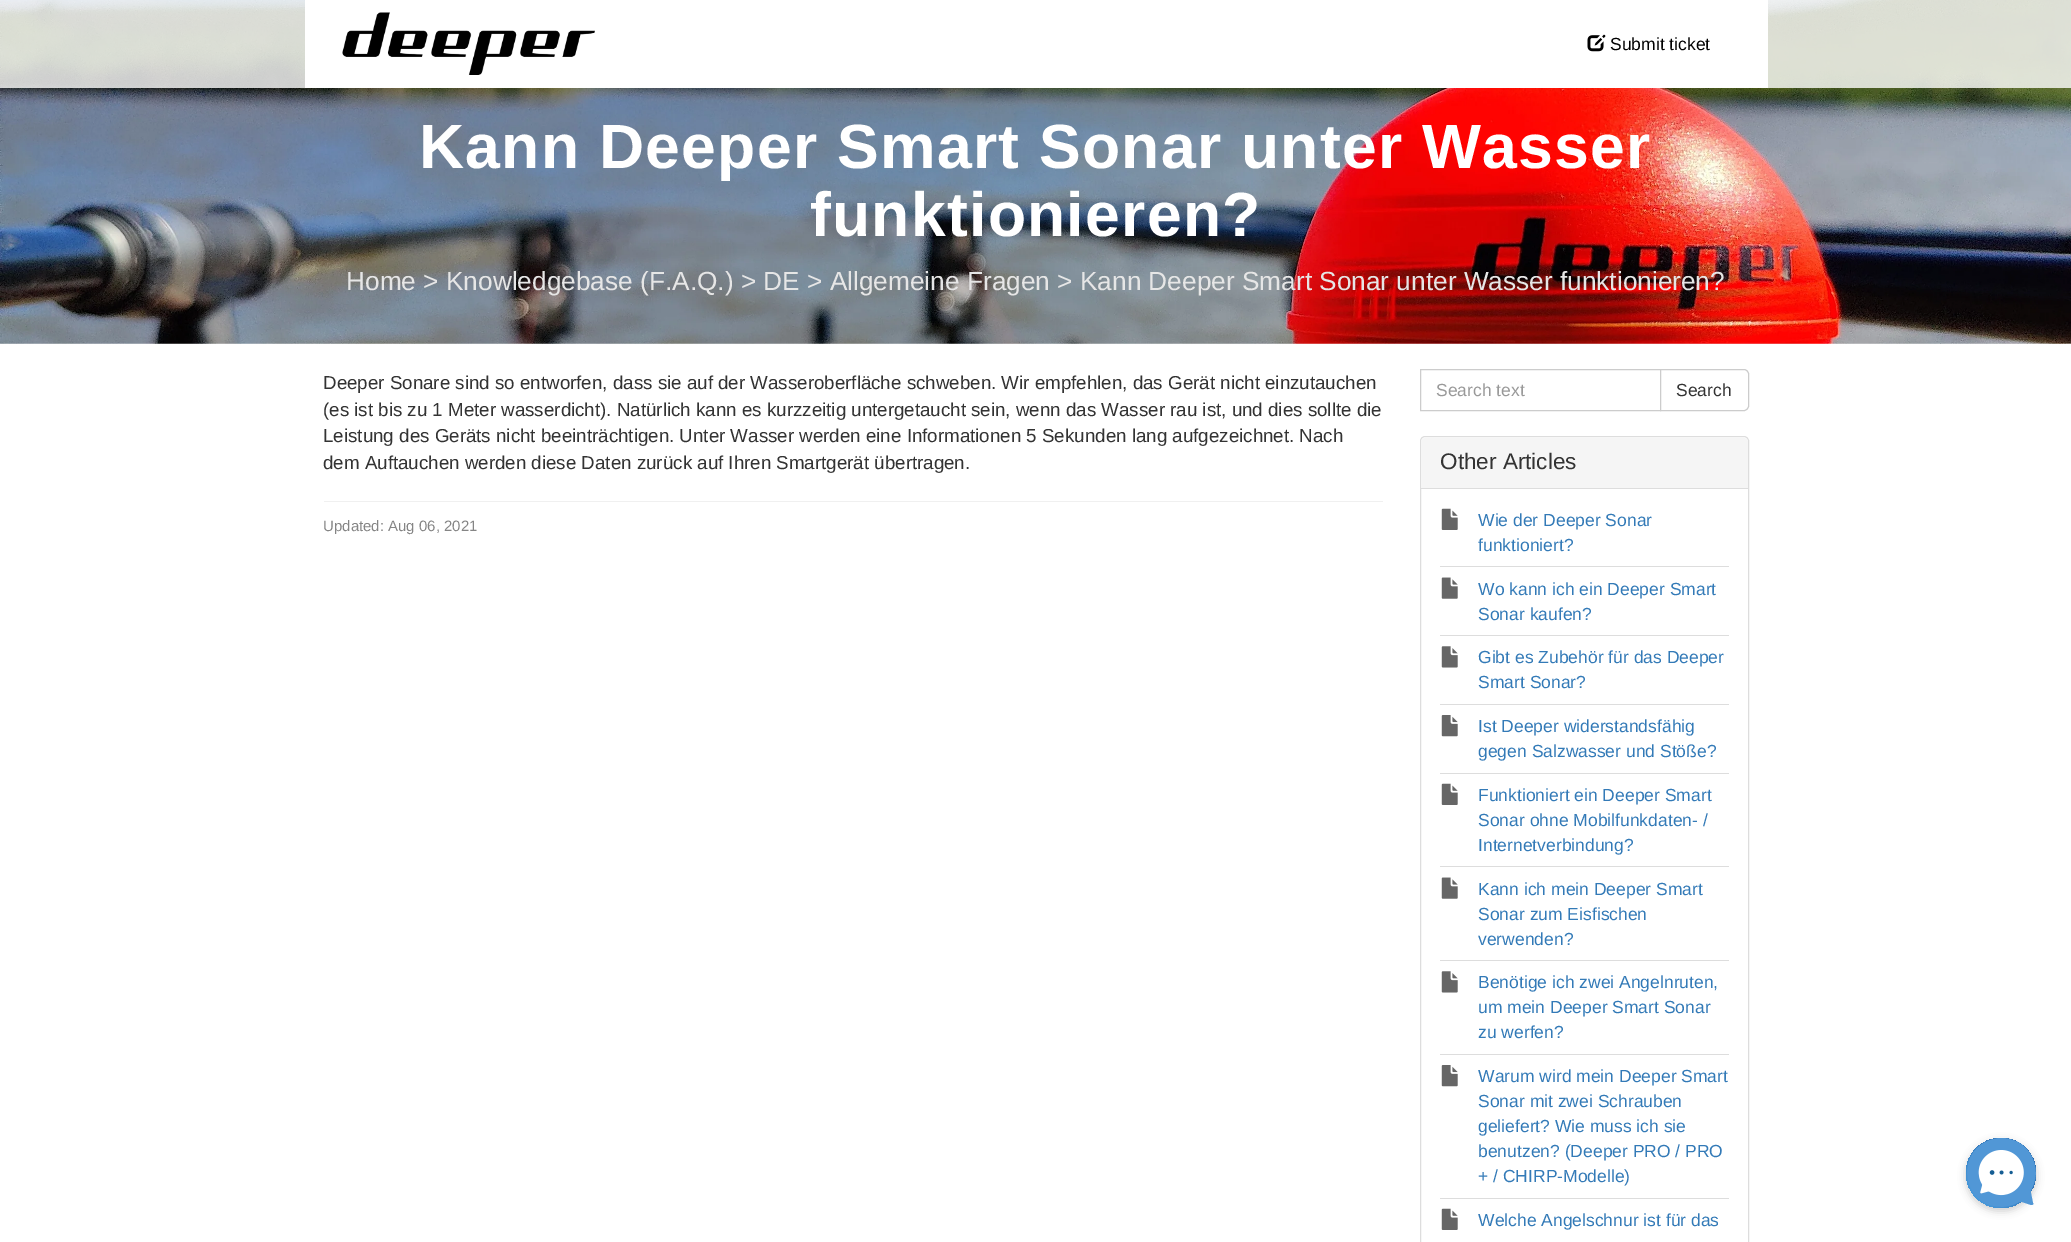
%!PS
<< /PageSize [2071 1242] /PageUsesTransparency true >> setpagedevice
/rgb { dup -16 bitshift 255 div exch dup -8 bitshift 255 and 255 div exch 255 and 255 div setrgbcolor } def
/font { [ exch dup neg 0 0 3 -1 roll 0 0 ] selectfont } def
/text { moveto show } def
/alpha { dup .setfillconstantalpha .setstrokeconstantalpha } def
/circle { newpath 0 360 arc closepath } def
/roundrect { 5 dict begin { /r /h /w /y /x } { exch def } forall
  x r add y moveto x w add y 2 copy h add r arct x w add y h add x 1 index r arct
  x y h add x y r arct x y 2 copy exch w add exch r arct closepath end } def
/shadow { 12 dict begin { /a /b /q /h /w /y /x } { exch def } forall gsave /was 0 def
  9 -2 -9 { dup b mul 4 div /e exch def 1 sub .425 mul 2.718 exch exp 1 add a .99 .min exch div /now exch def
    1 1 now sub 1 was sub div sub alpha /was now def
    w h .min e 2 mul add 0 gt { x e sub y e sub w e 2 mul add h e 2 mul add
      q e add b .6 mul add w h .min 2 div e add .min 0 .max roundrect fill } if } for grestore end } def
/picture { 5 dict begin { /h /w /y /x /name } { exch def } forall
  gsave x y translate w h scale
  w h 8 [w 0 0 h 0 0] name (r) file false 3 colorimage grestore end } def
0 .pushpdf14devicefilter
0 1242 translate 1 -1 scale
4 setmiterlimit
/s1 { /LiberationSans-Regular 17.5 font 16#000000 rgb } def
/s2 { /LiberationSans-Regular 26.25 font 16#E6E6E6 rgb } def
/s3 { /LiberationSans-Regular 18.75 font 16#333333 rgb } def
/s4 { /LiberationSans-Regular 15 font 16#858585 rgb } def
/s5 { /LiberationSans-Regular 17.5 font 16#999999 rgb } def
/s6 { /LiberationSans-Regular 17.5 font 16#333333 rgb } def
/s7 { /LiberationSans-Regular 22.5 font 16#333333 rgb } def
/s8 { /LiberationSans-Regular 17.5 font 16#337AB7 rgb } def
16#FFFFFF rgb
0 0 2071 1242 rectfill
(pic3.raw) 0 0 2071 344 picture
0.8 alpha
0 0 2071 88 rectfill
1 alpha
305 0 1463 88 rectfill
(pic1.raw) 342 12 253 63 picture
(pic2.raw) 1587 34 19 18 picture
s1
(Submit ticket) 1610 50 text
/LiberationSans-Bold 62.5 font
16#FFFFFF rgb
419 168 moveto 1.25 0 (Kann Deeper Smart Sonar unter Wasser) ashow
810 236 moveto 1.25 0 (funktionieren?) ashow
s2
(Home > Knowledgebase \(F.A.Q.\) > DE > Allgemeine Fragen > Kann Deeper Smart Sonar unter Wasser funktionieren?) 346 290 text
s3
(Deeper Sonare sind so entworfen, dass sie auf der Wasseroberfläche schweben. Wir empfehlen, das Gerät nicht einzutauchen) 323 389 text
(\(es ist bis zu 1 Meter wasserdicht\). Natürlich kann es kurzzeitig untergetaucht sein, wenn das Wasser rau ist, und dies sollte die) 323 416 text
(Leistung des Geräts nicht beeinträchtigen. Unter Wasser werden eine Informationen 5 Sekunden lang aufgezeichnet. Nach) 323 442 text
(dem Auftauchen werden diese Daten zurück auf Ihren Smartgerät übertragen.) 323 469 text
16#F0F0F0 rgb
324 501 1059 1 rectfill
s4
(Updated: Aug 06, 2021) 323 531 text
16#CCCCCC rgb
1420.5 369.5 240 41 rectstroke
s5
(Search text) 1436 396 text
16#FFFFFF rgb
1660.5 369.5 moveto 1744 369.5 lineto 1746.5 369.5 1748.5 371.5 1748.5 374 curveto 1748.5 406 lineto 1748.5 408.5 1746.5 410.5 1744 410.5 curveto 1660.5 410.5 lineto closepath gsave fill grestore
16#CCCCCC rgb
stroke
s6
(Search) 1676 396 text
16#DDDDDD rgb
1420.5 436.5 328 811 4.5 roundrect stroke
16#F5F5F5 rgb
1425 438 moveto 1744 438 lineto 1746 438 1748 440 1748 442 curveto 1748 489 lineto 1421 489 lineto 1421 442 lineto 1421 440 1423 438 1425 438 curveto closepath fill
16#DDDDDD rgb
1421 488 327 1 rectfill
s7
(Other Articles) 1440 469 text
16#DDDDDD rgb
1440 566 289 1 rectfill
(pic4.raw) 1441 508 17 22 picture
s8
(Wie der Deeper Sonar) 1478 526 text
(funktioniert?) 1478 551 text
16#DDDDDD rgb
1440 635 289 1 rectfill
(pic5.raw) 1441 577 17 22 picture
s8
(Wo kann ich ein Deeper Smart) 1478 595 text
(Sonar kaufen?) 1478 620 text
16#DDDDDD rgb
1440 704 289 1 rectfill
(pic6.raw) 1441 646 17 22 picture
s8
(Gibt es Zubehör für das Deeper) 1478 663 text
(Smart Sonar?) 1478 688 text
16#DDDDDD rgb
1440 773 289 1 rectfill
(pic7.raw) 1441 715 17 22 picture
s8
(Ist Deeper widerstandsfähig) 1478 732 text
(gegen Salzwasser und Stöße?) 1478 757 text
16#DDDDDD rgb
1440 866 289 1 rectfill
(pic4.raw) 1441 783 17 22 picture
s8
(Funktioniert ein Deeper Smart) 1478 801 text
(Sonar ohne Mobilfunkdaten- /) 1478 826 text
(Internetverbindung?) 1478 851 text
16#DDDDDD rgb
1440 960 289 1 rectfill
(pic5.raw) 1441 877 17 22 picture
s8
(Kann ich mein Deeper Smart) 1478 895 text
(Sonar zum Eisfischen) 1478 920 text
(verwenden?) 1478 945 text
16#DDDDDD rgb
1440 1054 289 1 rectfill
(pic6.raw) 1441 971 17 22 picture
s8
(Benötige ich zwei Angelnruten,) 1478 988 text
(um mein Deeper Smart Sonar) 1478 1013 text
(zu werfen?) 1478 1038 text
16#DDDDDD rgb
1440 1198 289 1 rectfill
(pic7.raw) 1441 1065 17 22 picture
s8
(Warum wird mein Deeper Smart) 1478 1082 text
(Sonar mit zwei Schrauben) 1478 1107 text
(geliefert? Wie muss ich sie) 1478 1132 text
(benutzen? \(Deeper PRO / PRO) 1478 1157 text
(+ / CHIRP-Modelle\)) 1478 1182 text
(pic4.raw) 1441 1208 17 22 picture
(Welche Angelschnur ist für das) 1478 1226 text
16#000000 rgb
1966 1141 70 70 35 4 0.2 shadow
gsave 2001 1173 35 circle clip newpath
<< /ShadingType 2 /ColorSpace /DeviceRGB /Coords [1966 1208 2036 1138] /Extend [true true] /Function << /FunctionType 2 /Domain [0 1] /C0 [0.314 0.643 0.898] /C1 [0.118 0.341 0.6] /N 1 >> >> shfill grestore
16#5197D6 rgb
2026 1148 moveto 2012 1134 1989 1135 1976 1149 curveto 1964 1162 1964 1184 1977 1197 curveto 1988 1208 2006 1210 2019 1202 curveto 2020 1202 2021 1202 2022 1202 curveto 2031 1205 lineto 2033 1205 2034 1204 2033 1203 curveto 2031 1193 lineto 2030 1192 2031 1191 2031 1190 curveto 2039 1177 2037 1160 2026 1148 curveto closepath fill
(pic8.raw) 1978 1150 46 46 picture
(pic9.raw) 1989 1170 24 5 picture
.poppdf14devicefilter showpage
